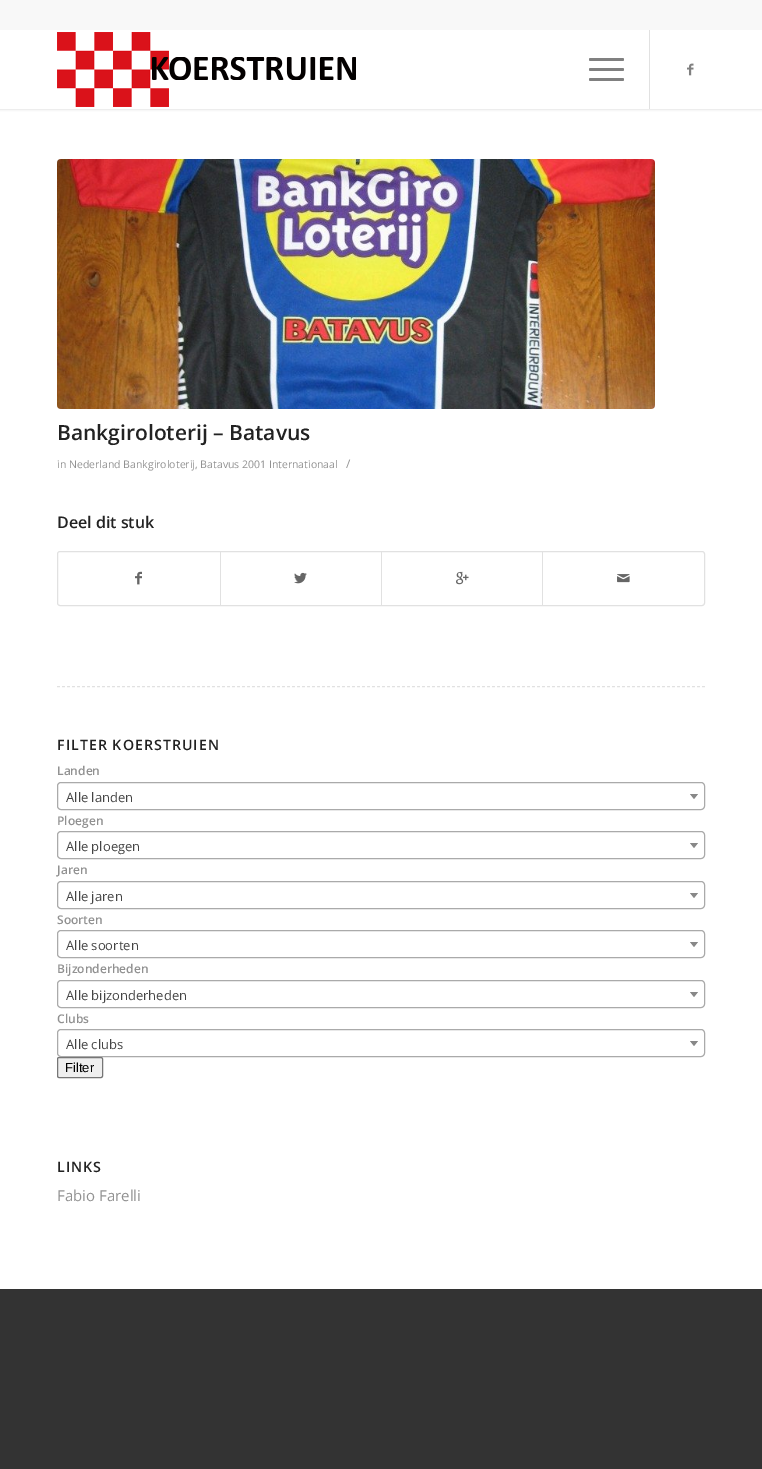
%!PS
<< /PageSize [762 1469] /PageUsesTransparency true >> setpagedevice
/rgb { dup -16 bitshift 255 div exch dup -8 bitshift 255 and 255 div exch 255 and 255 div setrgbcolor } def
/font { [ exch dup neg 0 0 3 -1 roll 0 0 ] selectfont } def
/text { moveto show } def
/alpha { dup .setfillconstantalpha .setstrokeconstantalpha } def
/roundrect { 5 dict begin { /r /h /w /y /x } { exch def } forall
  x r add y moveto x w add y 2 copy h add r arct x w add y h add x 1 index r arct
  x y h add x y r arct x y 2 copy exch w add exch r arct closepath end } def
/shadow { 12 dict begin { /a /b /q /h /w /y /x } { exch def } forall gsave /was 0 def
  9 -2 -9 { dup b mul 4 div /e exch def 1 sub .425 mul 2.718 exch exp 1 add a .99 .min exch div /now exch def
    1 1 now sub 1 was sub div sub alpha /was now def
    w h .min e 2 mul add 0 gt { x e sub y e sub w e 2 mul add h e 2 mul add
      q e add b .6 mul add w h .min 2 div e add .min 0 .max roundrect fill } if } for grestore end } def
/picture { 5 dict begin { /h /w /y /x /name } { exch def } forall
  gsave x y translate w h scale
  w h 8 [w 0 0 h 0 0] name (r) file false 3 colorimage grestore end } def
0 .pushpdf14devicefilter
0 1469 translate 1 -1 scale
4 setmiterlimit
/s1 { /OpenSans-SemiBold 21 font 16#222222 rgb } def
/s2 { /OpenSans-Regular 10.5 font 16#919191 rgb } def
/s3 { /OpenSans-Regular 12 font 16#919191 rgb } def
/s4 { /OpenSans-SemiBold 16 font 16#222222 rgb } def
/s5 { /OpenSans-SemiBold 12 font 16#919191 rgb } def
/s6 { /OpenSans-Regular 13 font 16#444444 rgb } def
/s7 { /LiberationSans-Regular 13 font 16#000000 rgb } def
/s8 { /OpenSans-Regular 15 font 16#919191 rgb } def
16#333333 rgb
0 0 762 1469 rectfill
16#FFFFFF rgb
0 109 762 1180 rectfill
16#000000 rgb
-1 -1 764 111 0 1 0.1 shadow
16#FFFFFF rgb
0 30 762 79 rectfill
16#E1E1E1 rgb
649 29 1 80 rectfill
16#F8F8F8 rgb
0 0 762 30 rectfill
(pic1.raw) 57 32 299 75 picture
16#808080 rgb
589 68 35 3 1.5 roundrect fill
589 58 35 3 1.5 roundrect fill
589 78 35 3 1.5 roundrect fill
(pic2.raw) 687 63 7 13 picture
(pic3.raw) 57 159 598 250 picture
s1
(Bankgiroloterij – Batavus) 57 440 text
s2
(in Nederland Bankgiroloterij, Batavus 2001 Internationaal) 57 468 text
s3
(/) 346 468 text
s4
(Deel dit stuk) 57 528 text
16#E1E1E1 rgb
57.5 551.5 647 54 2.5 roundrect stroke
(pic4.raw) 135 571 7 14 picture
220 552 1 53 rectfill
(pic5.raw) 294 572 13 12 picture
381 552 1 53 rectfill
(pic6.raw) 456 571 13 14 picture
542 552 1 53 rectfill
(pic7.raw) 617 574 13 9 picture
[3 2] 0 setdash
57 686.5 moveto 705 686.5 lineto stroke
/OpenSans-SemiBold 14.25 font
16#222222 rgb
57 750 moveto 1 0 (FILTER KOERSTRUIEN) ashow
s5
(Landen) 57 775 text
16#AAAAAA rgb
[] 0 setdash
57.5 782.5 647 27 3.5 roundrect stroke
s6
(Alle landen) 66 802 text
16#888888 rgb
690 794 moveto 698 794 lineto 694 799 lineto closepath fill
s5
(Ploegen) 57 825 text
16#AAAAAA rgb
57.5 831.5 647 27 3.5 roundrect stroke
s6
(Alle ploegen) 66 851 text
16#888888 rgb
690 843 moveto 698 843 lineto 694 848 lineto closepath fill
s5
(Jaren) 57 874 text
16#AAAAAA rgb
57.5 881.5 647 27 3.5 roundrect stroke
s6
(Alle jaren) 66 901 text
16#888888 rgb
690 893 moveto 698 893 lineto 694 898 lineto closepath fill
s5
(Soorten) 57 924 text
16#AAAAAA rgb
57.5 930.5 647 27 3.5 roundrect stroke
s6
(Alle soorten) 66 950 text
16#888888 rgb
690 942 moveto 698 942 lineto 694 947 lineto closepath fill
s5
(Bijzonderheden) 57 973 text
16#AAAAAA rgb
57.5 980.5 647 27 3.5 roundrect stroke
s6
(Alle bijzonderheden) 66 1000 text
16#888888 rgb
690 992 moveto 698 992 lineto 694 997 lineto closepath fill
s5
(Clubs) 57 1023 text
16#AAAAAA rgb
57.5 1029.5 647 27 3.5 roundrect stroke
s6
(Alle clubs) 66 1049 text
16#888888 rgb
690 1041 moveto 698 1041 lineto 694 1046 lineto closepath fill
16#EFEFEF rgb
57.5 1057.5 45 20 1.5 roundrect gsave fill grestore
16#767676 rgb
stroke
s7
(Filter) 65 1072 text
/OpenSans-SemiBold 14.25 font
16#222222 rgb
57 1172 moveto 1 0 (LINKS) ashow
s8
(Fabio Farelli) 57 1201 text
.poppdf14devicefilter showpage
